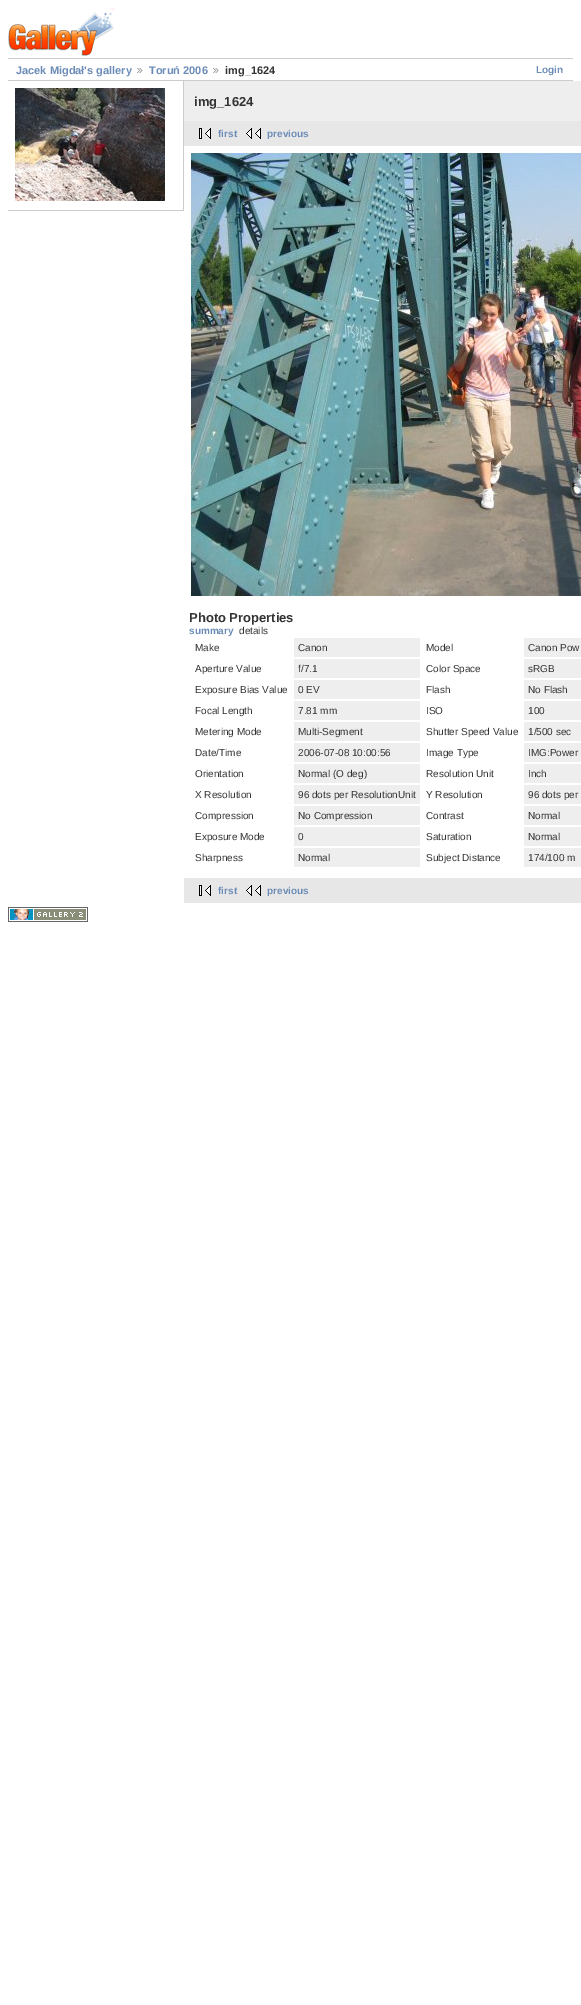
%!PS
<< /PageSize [581 2005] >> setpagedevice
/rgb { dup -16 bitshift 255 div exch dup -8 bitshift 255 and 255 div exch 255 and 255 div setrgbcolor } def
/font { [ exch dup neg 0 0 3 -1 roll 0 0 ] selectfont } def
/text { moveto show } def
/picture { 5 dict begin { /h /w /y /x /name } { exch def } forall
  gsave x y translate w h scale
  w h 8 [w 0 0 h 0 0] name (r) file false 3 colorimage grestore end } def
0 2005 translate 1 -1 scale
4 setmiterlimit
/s1 { /LiberationSans-Bold 11 font 16#6B8CB7 rgb } def
/s2 { /LiberationSans-Bold 11 font 16#333333 rgb } def
/s3 { /LiberationSans-Bold 10 font 16#6B8CB7 rgb } def
/s4 { /LiberationSans-Bold 13 font 16#333333 rgb } def
/s5 { /LiberationSans-Regular 10 font 16#333333 rgb } def
16#FFFFFF rgb
0 0 581 2005 rectfill
(pic1.raw) 8 8 107 48 picture
16#CCCCCC rgb
8 58 565 1 rectfill
8 80 565 1 rectfill
s1
(Jacek Migdał's gallery) 16 74 text
(pic2.raw) 137 68 6 5 picture
(Toruń 2006) 149 74 text
(pic2.raw) 213 68 6 5 picture
s2
(img_1624) 225 74 text
s3
(Login) 536 73 text
16#CCCCCC rgb
183 81 1 130 rectfill
8 210 175 1 rectfill
(pic3.raw) 15 88 150 113 picture
16#EEEEEE rgb
184 81 397 40 rectfill
s4
(img_1624) 194 106 text
16#E7E7E7 rgb
184 121 397 25 rectfill
(pic4.raw) 199 128 12 11 picture
s3
(first) 218 137 text
(pic5.raw) 246 128 15 11 picture
(previous) 267 137 text
(pic6.raw) 191 153 390 443 picture
s4
(Photo Properties) 189 622 text
s3
(summary) 189 634 text
s5
(details) 239 634 text
(Make) 195 651 text
16#EEEEEE rgb
294 638 126 19 rectfill
s5
(Canon) 298 651 text
(Model) 426 651 text
16#EEEEEE rgb
524 638 57 19 rectfill
s5
(Canon Pow) 528 651 text
(Aperture Value) 195 672 text
16#EEEEEE rgb
294 659 126 19 rectfill
s5
(f/7.1) 298 672 text
(Color Space) 426 672 text
16#EEEEEE rgb
524 659 57 19 rectfill
s5
(sRGB) 528 672 text
(Exposure Bias Value) 195 693 text
16#EEEEEE rgb
294 680 126 19 rectfill
s5
(0 EV) 298 693 text
(Flash) 426 693 text
16#EEEEEE rgb
524 680 57 19 rectfill
s5
(No Flash) 528 693 text
(Focal Length) 195 714 text
16#EEEEEE rgb
294 701 126 19 rectfill
s5
(7.81 mm) 298 714 text
(ISO) 426 714 text
16#EEEEEE rgb
524 701 57 19 rectfill
s5
(100) 528 714 text
(Metering Mode) 195 735 text
16#EEEEEE rgb
294 722 126 19 rectfill
s5
(Multi-Segment) 298 735 text
(Shutter Speed Value) 426 735 text
16#EEEEEE rgb
524 722 57 19 rectfill
s5
(1/500 sec) 528 735 text
(Date/Time) 195 756 text
16#EEEEEE rgb
294 743 126 19 rectfill
s5
(2006-07-08 10:00:56) 298 756 text
(Image Type) 426 756 text
16#EEEEEE rgb
524 743 57 19 rectfill
s5
(IMG:Power) 528 756 text
(Orientation) 195 777 text
16#EEEEEE rgb
294 764 126 19 rectfill
s5
(Normal \(O deg\)) 298 777 text
(Resolution Unit) 426 777 text
16#EEEEEE rgb
524 764 57 19 rectfill
s5
(Inch) 528 777 text
(X Resolution) 195 798 text
16#EEEEEE rgb
294 785 126 19 rectfill
s5
(96 dots per ResolutionUnit) 298 798 text
(Y Resolution) 426 798 text
16#EEEEEE rgb
524 785 57 19 rectfill
s5
(96 dots per) 528 798 text
(Compression) 195 819 text
16#EEEEEE rgb
294 806 126 19 rectfill
s5
(No Compression) 298 819 text
(Contrast) 426 819 text
16#EEEEEE rgb
524 806 57 19 rectfill
s5
(Normal) 528 819 text
(Exposure Mode) 195 840 text
16#EEEEEE rgb
294 827 126 19 rectfill
s5
(0) 298 840 text
(Saturation) 426 840 text
16#EEEEEE rgb
524 827 57 19 rectfill
s5
(Normal) 528 840 text
(Sharpness) 195 861 text
16#EEEEEE rgb
294 848 126 19 rectfill
s5
(Normal) 298 861 text
(Subject Distance) 426 861 text
16#EEEEEE rgb
524 848 57 19 rectfill
s5
(174/100 m) 528 861 text
16#E7E7E7 rgb
184 878 397 25 rectfill
(pic4.raw) 199 885 12 11 picture
s3
(first) 218 894 text
(pic5.raw) 246 885 15 11 picture
(previous) 267 894 text
(pic7.raw) 8 907 80 15 picture
showpage
